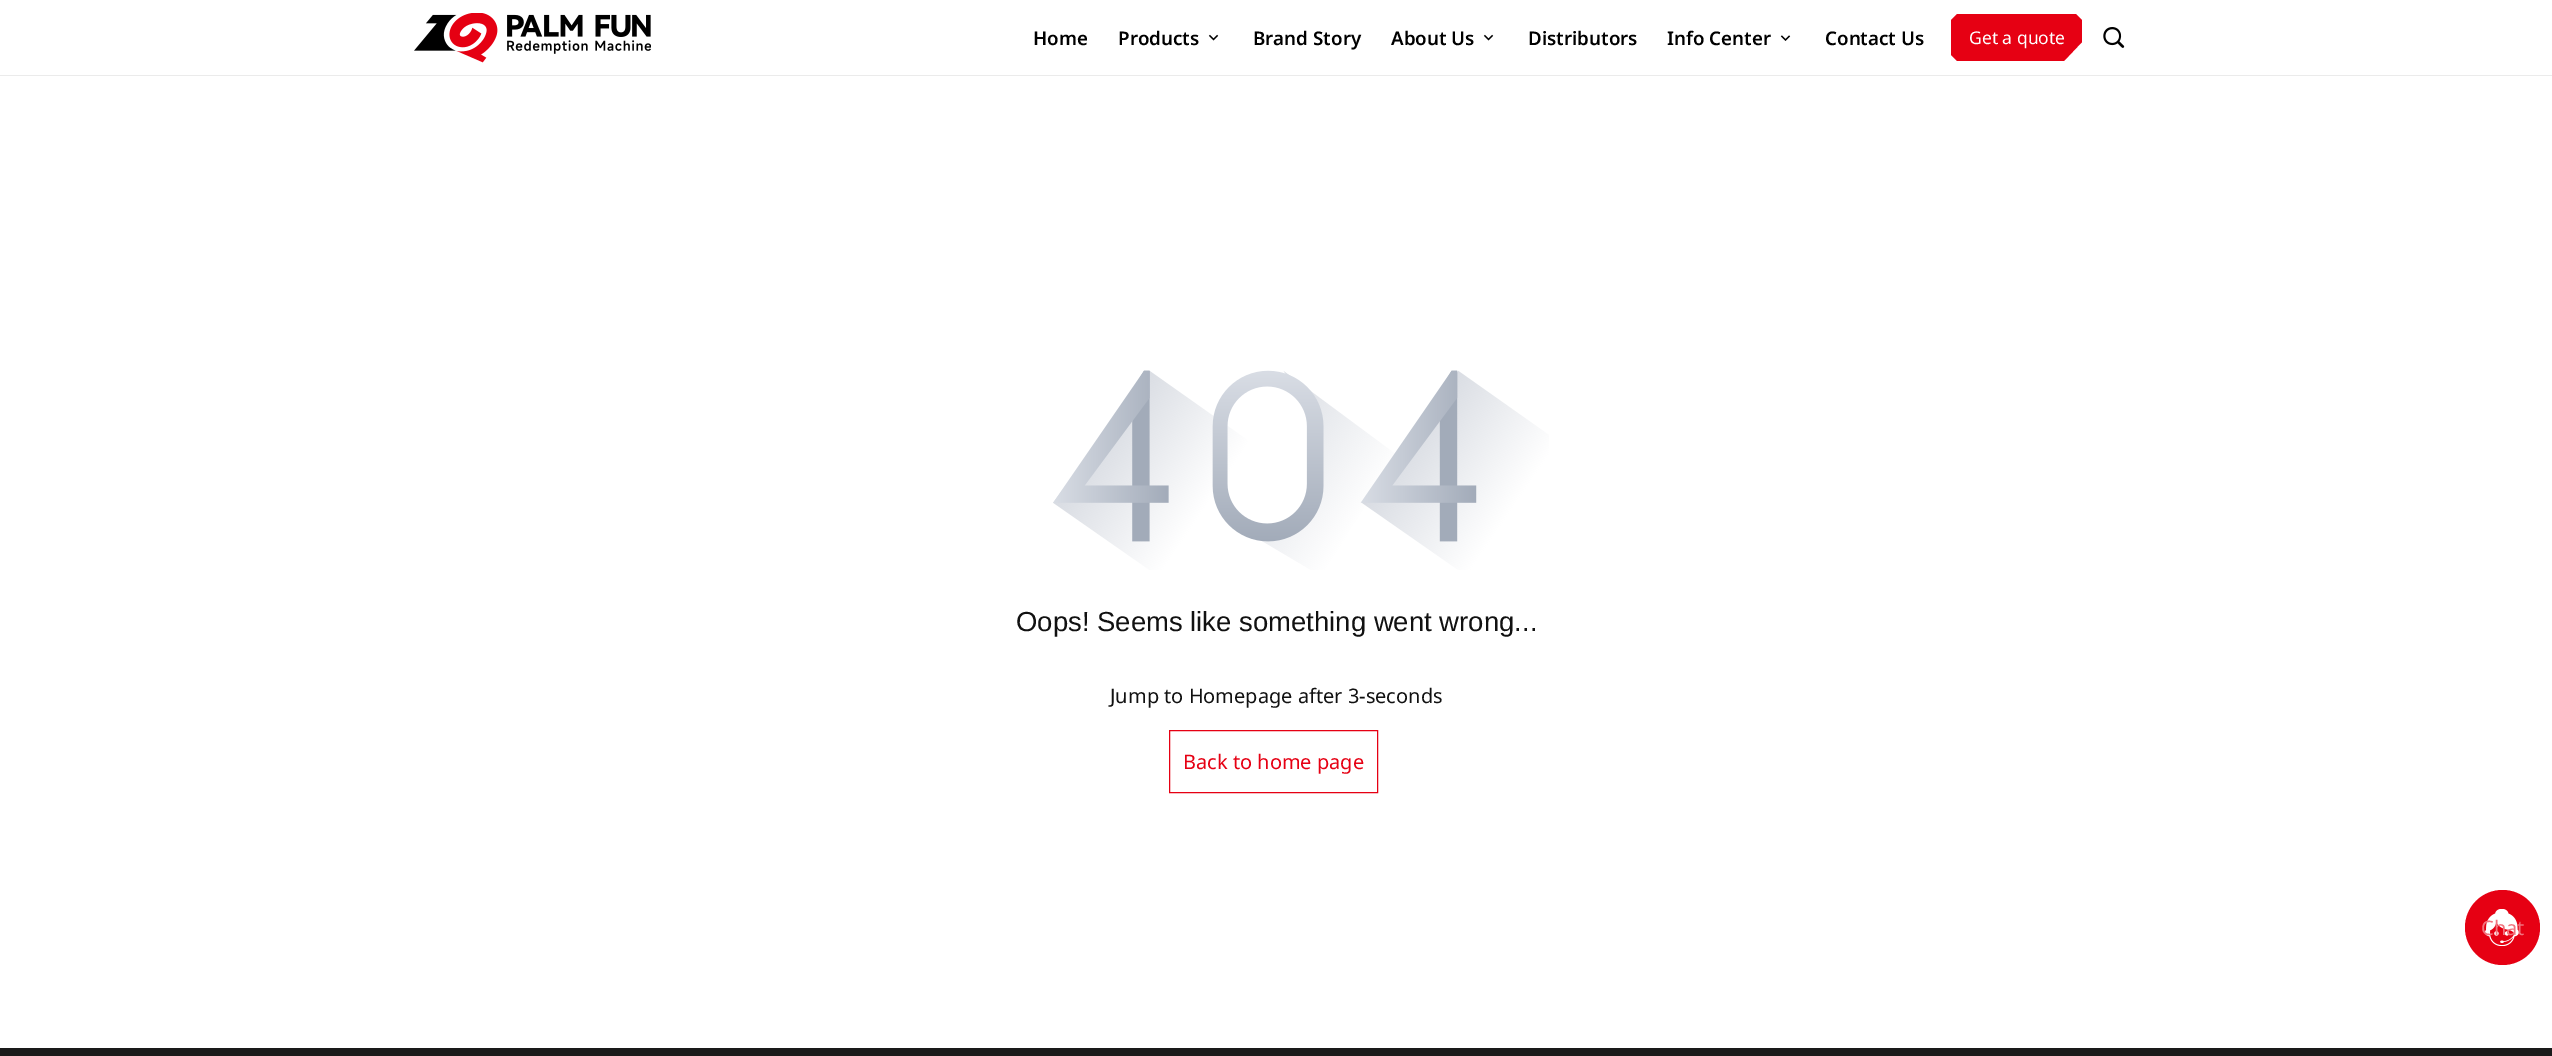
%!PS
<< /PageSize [2552 1056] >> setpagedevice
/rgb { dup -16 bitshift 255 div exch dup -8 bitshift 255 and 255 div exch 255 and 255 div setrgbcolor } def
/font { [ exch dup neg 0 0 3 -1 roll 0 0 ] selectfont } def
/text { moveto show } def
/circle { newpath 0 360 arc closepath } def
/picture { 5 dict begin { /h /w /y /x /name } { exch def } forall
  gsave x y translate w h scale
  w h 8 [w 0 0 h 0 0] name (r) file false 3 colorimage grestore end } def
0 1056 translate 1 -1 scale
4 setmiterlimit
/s1 { /NotoSans-SemiBold 18.75 font 16#000000 rgb } def
/s2 { /NotoSans-Regular 17.5 font 16#FFFFFF rgb } def
/s3 { /Arimo-Regular 27.5 font 16#111111 rgb } def
/s4 { /NotoSans-Regular 20 font 16#111111 rgb } def
/s5 { /NotoSans-Regular 20 font 16#E60013 rgb } def
/s6 { /NotoSans-Regular 20 font 16#F1737E rgb } def
16#FFFFFF rgb
0 0 2552 1056 rectfill
16#EBEBEB rgb
0 75 2552 1 rectfill
(pic1.raw) 414 13 237 50 picture
s1
(Home) 1033 45 text
(Products) 1118 45 text
(pic2.raw) 1208 34 11 7 picture
(Brand Story) 1253 45 text
(About Us) 1391 45 text
(pic2.raw) 1483 34 11 7 picture
(Distributors) 1528 45 text
(Info Center) 1667 45 text
(pic3.raw) 1780 35 11 6 picture
(Contact Us) 1825 45 text
16#E60013 rgb
1951 20 moveto 1951 55 lineto 1957 61 lineto 2064 61 lineto 2082 42 lineto 2082 20 lineto 2076 14 lineto 1957 14 lineto closepath fill
s2
(Get a quote) 1969 44 text
(pic4.raw) 2103 27 22 21 picture
(pic5.raw) 1053 370 496 200 picture
s3
(Oops! Seems like something went wrong...) 1016 631 text
s4
(Jump to Homepage after 3-seconds) 1110 703 text
16#E60013 rgb
1169.5 730.5 208 62 rectstroke
(Back to home page) 1183 769 text
16#1A1A1A rgb
0 1048 2552 8 rectfill
16#E60013 rgb
2502.5 927.5 37.5 circle fill
(pic6.raw) 2485 909 34 37 picture
s6
(Chat) 2481 935 text
showpage
